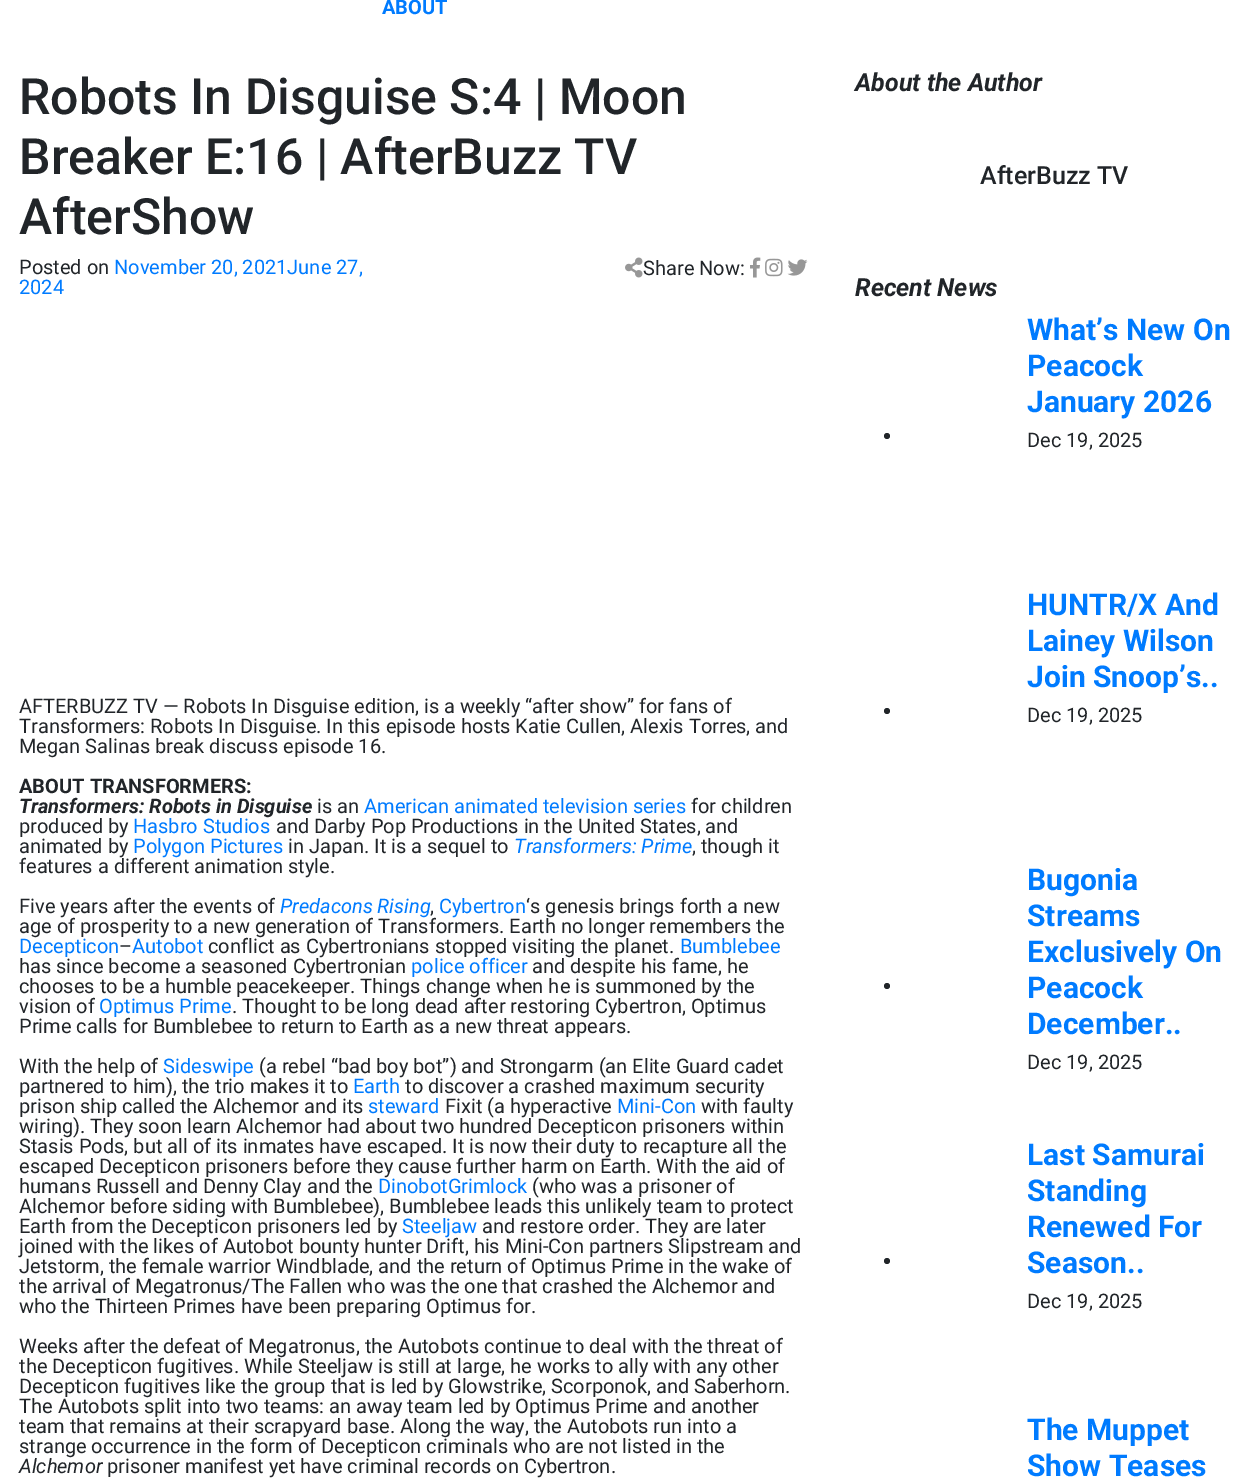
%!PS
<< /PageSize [1253 1483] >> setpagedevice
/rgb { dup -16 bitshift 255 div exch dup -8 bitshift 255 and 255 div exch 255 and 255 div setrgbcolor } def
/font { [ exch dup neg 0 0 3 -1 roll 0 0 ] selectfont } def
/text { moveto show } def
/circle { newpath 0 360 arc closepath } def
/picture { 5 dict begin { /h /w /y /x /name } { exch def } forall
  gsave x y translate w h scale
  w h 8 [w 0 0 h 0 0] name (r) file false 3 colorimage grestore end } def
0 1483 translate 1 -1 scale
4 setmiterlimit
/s1 { /Roboto-Bold 20 font 16#007BFF rgb } def
/s2 { /Roboto-Medium 50 font 16#212529 rgb } def
/s3 { /Roboto-Regular 20 font 16#212529 rgb } def
/s4 { /Roboto-Regular 20 font 16#007BFF rgb } def
/s5 { /Roboto-Bold 20 font 16#212529 rgb } def
/s6 { /Roboto-BoldItalic 20 font 16#212529 rgb } def
/s7 { /Roboto-Italic 20 font 16#007BFF rgb } def
/s8 { /Roboto-Italic 20 font 16#212529 rgb } def
/s9 { /Roboto-BoldItalic 25 font 16#212529 rgb } def
/s10 { /Roboto-Medium 25 font 16#212529 rgb } def
/s11 { /Roboto-Bold 30 font 16#007BFF rgb } def
16#FFFFFF rgb
0 0 1253 1483 rectfill
s1
(ABOUT) 382 14 text
s2
(Robots In Disguise S:4 | Moon) 19 114 text
(Breaker E:16 | AfterBuzz TV) 19 174 text
(AfterShow) 19 234 text
s3
(Posted on) 19 274 text
s4
(November 20, 2021June 27,) 114 274 text
(2024) 19 294 text
(pic1.raw) 625 257 18 21 picture
s3
(Share Now:) 643 275 text
(pic2.raw) 750 257 11 21 picture
(pic3.raw) 765 258 18 19 picture
(pic4.raw) 787 259 21 17 picture
(AFTERBUZZ TV — Robots In Disguise edition, is a weekly “after show” for fans of) 19 713 text
(Transformers: Robots In Disguise. In this episode hosts Katie Cullen, Alexis Torres, and) 19 733 text
(Megan Salinas break discuss episode 16.) 19 753 text
s5
(ABOUT TRANSFORMERS:) 19 793 text
s6
(Transformers: Robots in Disguise) 19 813 text
s3
(is an) 317 813 text
s4
(American animated television series) 364 813 text
s3
(for children) 691 813 text
(produced by) 19 833 text
s4
(Hasbro Studios) 133 833 text
s3
(and Darby Pop Productions in the United States, and) 276 833 text
(animated by) 19 853 text
s4
(Polygon Pictures) 133 853 text
s3
(in Japan. It is a sequel to) 288 853 text
s7
(Transformers: Prime) 514 853 text
s3
(, though it) 692 853 text
(features a different animation style.) 19 873 text
(Five years after the events of) 19 913 text
s7
(Predacons Rising) 280 913 text
s3
(,) 430 913 text
s4
(Cybertron) 439 913 text
s3
(‘s genesis brings forth a new) 526 913 text
(age of prosperity to a new generation of Transformers. Earth no longer remembers the) 19 933 text
s4
(Decepticon) 19 953 text
s3
(–) 119 953 text
s4
(Autobot) 132 953 text
s3
(conflict as Cybertronians stopped visiting the planet.) 208 953 text
s4
(Bumblebee) 680 953 text
s3
(has since become a seasoned Cybertronian) 19 973 text
s4
(police officer) 411 973 text
s3
(and despite his fame, he) 532 973 text
(chooses to be a humble peacekeeper. Things change when he is summoned by the) 19 993 text
(vision of) 19 1013 text
s4
(Optimus Prime) 99 1013 text
s3
(. Thought to be long dead after restoring Cybertron, Optimus) 232 1013 text
(Prime calls for Bumblebee to return to Earth as a new threat appears.) 19 1033 text
(With the help of) 19 1073 text
s4
(Sideswipe) 163 1073 text
s3
(\(a rebel “bad boy bot”\) and Strongarm \(an Elite Guard cadet) 259 1073 text
(partnered to him\), the trio makes it to) 19 1093 text
s4
(Earth) 353 1093 text
s3
(to discover a crashed maximum security) 405 1093 text
(prison ship called the Alchemor and its) 19 1113 text
s4
(steward) 368 1113 text
s3
(Fixit \(a hyperactive) 445 1113 text
s4
(Mini-Con) 617 1113 text
s3
(with faulty) 701 1113 text
(wiring\). They soon learn Alchemor had about two hundred Decepticon prisoners within) 19 1133 text
(Stasis Pods, but all of its inmates have escaped. It is now their duty to recapture all the) 19 1153 text
(escaped Decepticon prisoners before they cause further harm on Earth. With the aid of) 19 1173 text
(humans Russell and Denny Clay and the) 19 1193 text
s4
(DinobotGrimlock) 378 1193 text
s3
(\(who was a prisoner of) 532 1193 text
(Alchemor before siding with Bumblebee\), Bumblebee leads this unlikely team to protect) 19 1213 text
(Earth from the Decepticon prisoners led by) 19 1233 text
s4
(Steeljaw) 402 1233 text
s3
(and restore order. They are later) 482 1233 text
(joined with the likes of Autobot bounty hunter Drift, his Mini-Con partners Slipstream and) 19 1253 text
(Jetstorm, the female warrior Windblade, and the return of Optimus Prime in the wake of) 19 1273 text
(the arrival of Megatronus/The Fallen who was the one that crashed the Alchemor and) 19 1293 text
(who the Thirteen Primes have been preparing Optimus for.) 19 1313 text
(Weeks after the defeat of Megatronus, the Autobots continue to deal with the threat of) 19 1353 text
(the Decepticon fugitives. While Steeljaw is still at large, he works to ally with any other) 19 1373 text
(Decepticon fugitives like the group that is led by Glowstrike, Scorponok, and Saberhorn.) 19 1393 text
(The Autobots split into two teams: an away team led by Optimus Prime and another) 19 1413 text
(team that remains at their scrapyard base. Along the way, the Autobots run into a) 19 1433 text
(strange occurrence in the form of Decepticon criminals who are not listed in the) 19 1453 text
s8
(Alchemor) 19 1473 text
s3
(prisoner manifest yet have criminal records on Cybertron.) 107 1473 text
s9
(About the Author) 855 91 text
s10
(AfterBuzz TV) 980 184 text
s9
(Recent News) 855 296 text
887 436 3 circle fill
s11
(What’s New On) 1027 340 text
(Peacock) 1027 376 text
(January 2026) 1027 412 text
s3
(Dec 19, 2025) 1027 447 text
887 711 3 circle fill
s11
(HUNTR/X And) 1027 615 text
(Lainey Wilson) 1027 651 text
(Join Snoop’s..) 1027 687 text
s3
(Dec 19, 2025) 1027 722 text
887 986 3 circle fill
s11
(Bugonia) 1027 890 text
(Streams) 1027 926 text
(Exclusively On) 1027 962 text
(Peacock) 1027 998 text
(December..) 1027 1034 text
s3
(Dec 19, 2025) 1027 1069 text
887 1261 3 circle fill
s11
(Last Samurai) 1027 1165 text
(Standing) 1027 1201 text
(Renewed For) 1027 1237 text
(Season..) 1027 1273 text
s3
(Dec 19, 2025) 1027 1308 text
s11
(The Muppet) 1027 1440 text
(Show Teases) 1027 1476 text
showpage
